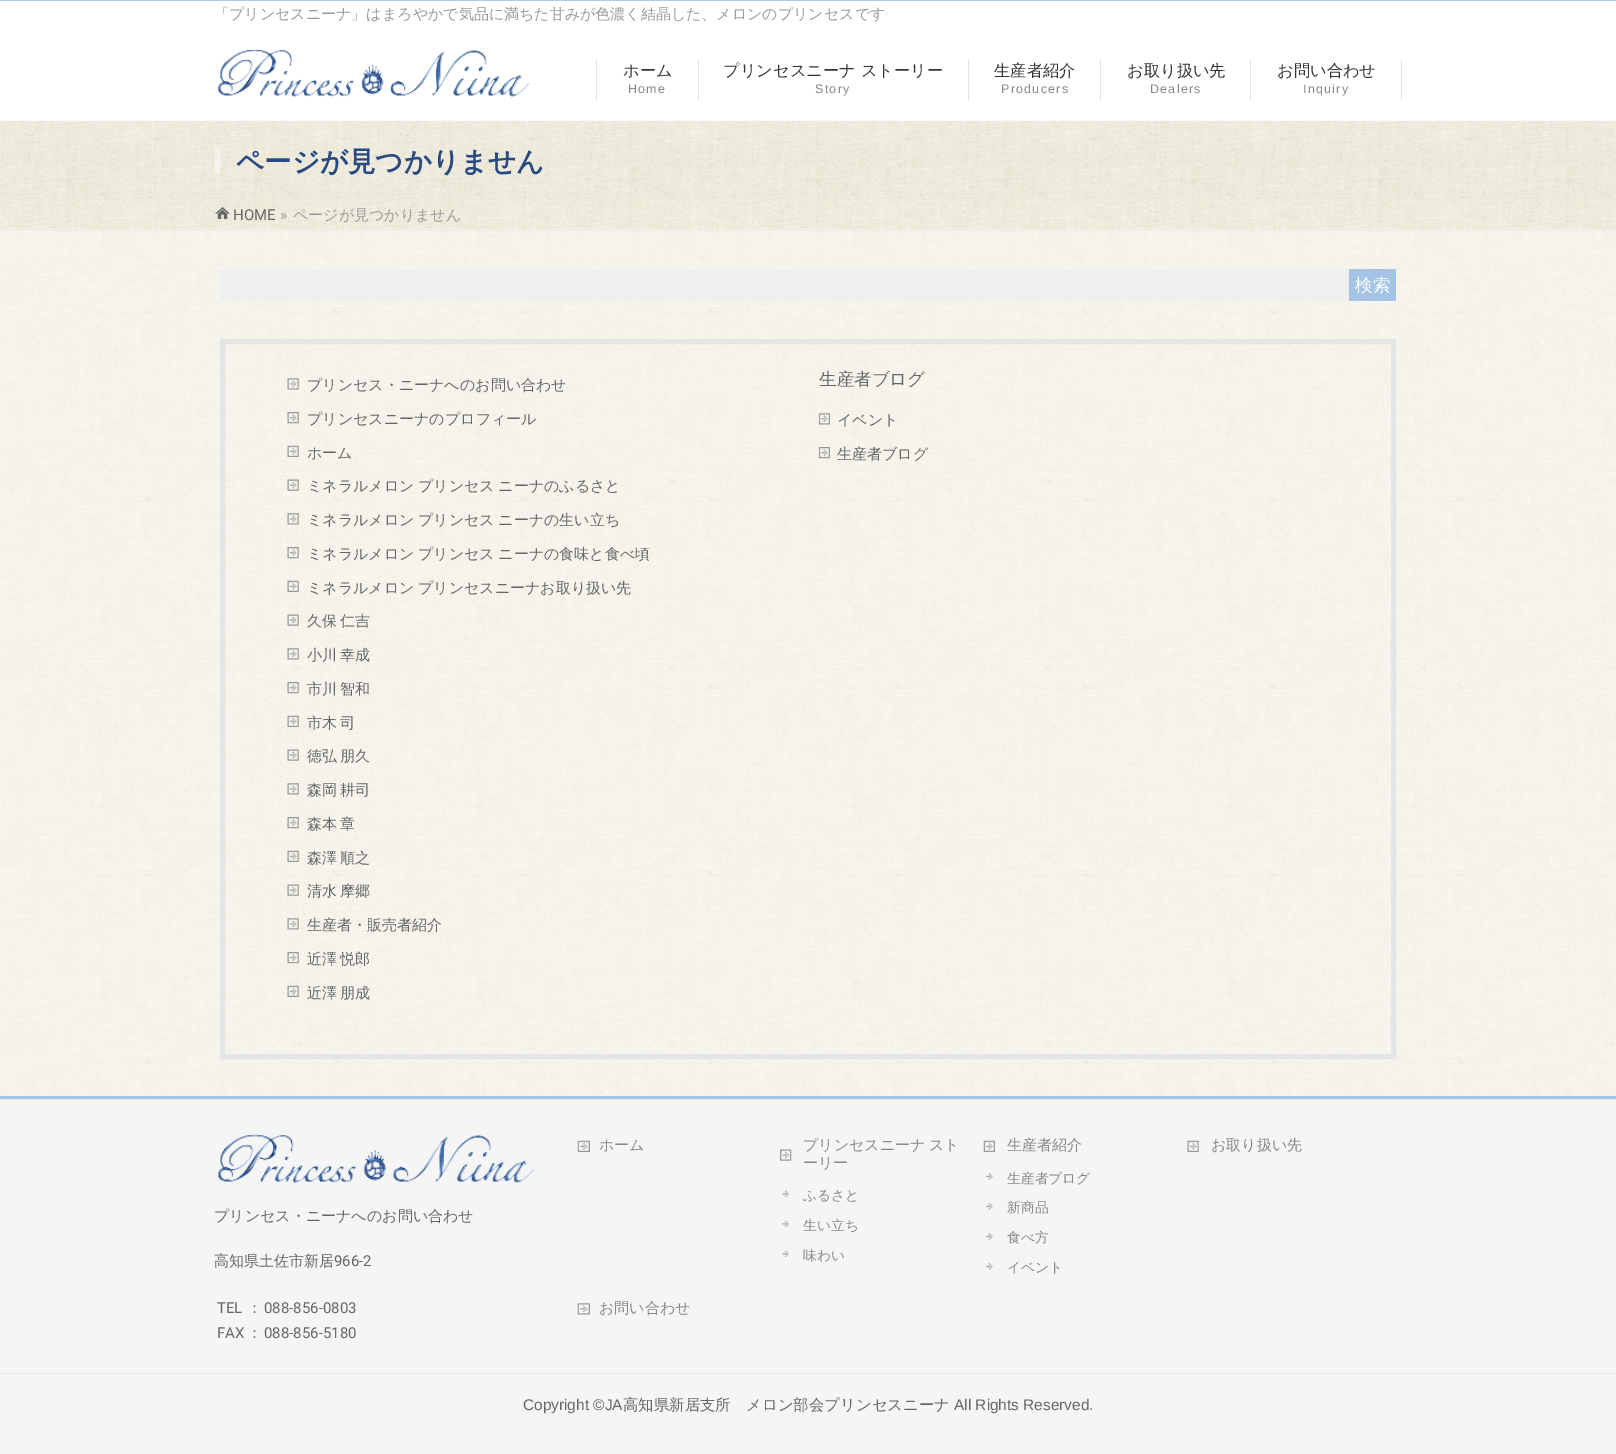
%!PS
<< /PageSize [1616 1454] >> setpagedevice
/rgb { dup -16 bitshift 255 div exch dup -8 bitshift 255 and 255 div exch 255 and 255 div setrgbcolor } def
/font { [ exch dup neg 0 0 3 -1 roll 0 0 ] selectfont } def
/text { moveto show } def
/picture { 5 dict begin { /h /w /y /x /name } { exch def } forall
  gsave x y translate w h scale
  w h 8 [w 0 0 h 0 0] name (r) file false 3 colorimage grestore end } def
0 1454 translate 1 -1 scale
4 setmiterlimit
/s1 { /WenQuanYiZenHei-Medium 15 font 16#999999 rgb } def
/s2 { /WenQuanYiZenHei-Medium 16.25 font 16#333333 rgb } def
/s3 { /WenQuanYiZenHei-Bold 27.5 font 16#294982 rgb } def
/s4 { /Roboto-Regular 15 font 16#666666 rgb } def
/s5 { /Roboto-Regular 15 font 16#999999 rgb } def
/s6 { /WenQuanYiZenHei-Medium 17.5 font 16#FFFFFF rgb } def
/s7 { /WenQuanYiZenHei-Medium 15 font 16#666666 rgb } def
/s8 { /WenQuanYiZenHei-Medium 17.5 font 16#666666 rgb } def
/s9 { /WenQuanYiZenHei-Medium 15 font 16#888888 rgb } def
/s10 { /WenQuanYiZenHei-Medium 13.75 font 16#888888 rgb } def
/s11 { /LiberationSans-Regular 15.4 font 16#666666 rgb } def
/s12 { /WenQuanYiZenHei-Medium 15.4 font 16#666666 rgb } def
16#FFFFFF rgb
0 0 1616 1454 rectfill
(pic1.raw) 0 231 1616 865 picture
16#ADCBEF rgb
0 0 1616 1 rectfill
s1
(「プリンセスニーナ」はまろやかで気品に満ちた甘みが色濃く結晶した、メロンのプリンセスです) 214 19 text
(pic2.raw) 217 49 313 48 picture
16#E5E5E5 rgb
698 59 1 42 rectfill
596 59 1 42 rectfill
s2
(ホーム) 623 76 text
/LiberationSans-Regular 12.5 font
16#888888 rgb
628 93 moveto 1.25 0 (Home) ashow
16#E5E5E5 rgb
968 59 1 42 rectfill
s2
(プリンセスニーナ ストーリー) 723 76 text
/LiberationSans-Regular 12.5 font
16#888888 rgb
815 93 moveto 1.25 0 (Story) ashow
16#E5E5E5 rgb
1100 59 1 42 rectfill
s2
(生産者紹介) 994 76 text
/LiberationSans-Regular 12.5 font
16#888888 rgb
1001 93 moveto 1.25 0 (Producers) ashow
16#E5E5E5 rgb
1250 59 1 42 rectfill
s2
(お取り扱い先) 1127 76 text
/LiberationSans-Regular 12.5 font
16#888888 rgb
1150 93 moveto 1.25 0 (Dealers) ashow
16#E5E5E5 rgb
1401 59 1 42 rectfill
s2
(お問い合わせ) 1277 76 text
/LiberationSans-Regular 12.5 font
16#888888 rgb
1303 93 moveto 1.25 0 (Inquiry) ashow
(pic3.raw) 0 120 1616 79 picture
16#E9E9E9 rgb
0 121 1616 1 rectfill
0 199 1616 1 rectfill
(pic4.raw) 215 147 5 27 picture
s3
(ページが見つかりません) 236 171 text
16#F7F7F7 rgb
0 229 1616 1 rectfill
(pic5.raw) 0 199 1616 31 picture
(pic6.raw) 215 207 15 12 picture
s4
(HOME) 233 220 text
s5
(») 280 220 text
s1
(ページが見つかりません) 293 220 text
16#E9E9E9 rgb
0 230 1616 1 rectfill
16#EFEFEF rgb
220 269 1129 32 rectfill
16#A3C4E5 rgb
1349 269 47 32 rectfill
s6
(検索) 1355 291 text
16#E5E5E5 rgb
5 setlinewidth
222.5 341.5 1171 715 rectstroke
(pic7.raw) 287 378 12 12 picture
s7
(プリンセス・ニーナへのお問い合わせ) 307 390 text
(pic8.raw) 287 412 12 12 picture
(プリンセスニーナのプロフィール) 307 424 text
(pic9.raw) 287 445 12 12 picture
(ホーム) 307 458 text
(pic10.raw) 287 479 12 12 picture
307 491 moveto -1 0 32 (ミネラルメロン プリンセス ニーナのふるさと) widthshow
(pic11.raw) 287 513 12 12 picture
307 525 moveto -1 0 32 (ミネラルメロン プリンセス ニーナの生い立ち) widthshow
(pic12.raw) 287 547 12 12 picture
307 559 moveto -1 0 32 (ミネラルメロン プリンセス ニーナの食味と食べ頃) widthshow
(pic13.raw) 287 580 12 12 picture
307 593 moveto -1 0 32 (ミネラルメロン プリンセスニーナお取り扱い先) widthshow
(pic14.raw) 287 614 12 12 picture
307 626 moveto -1 0 32 (久保 仁吉) widthshow
(pic15.raw) 287 648 12 12 picture
307 660 moveto -1 0 32 (小川 幸成) widthshow
(pic16.raw) 287 682 12 12 picture
307 694 moveto -1 0 32 (市川 智和) widthshow
(pic17.raw) 287 715 12 12 picture
307 728 moveto -1 0 32 (市木 司) widthshow
(pic18.raw) 287 749 12 12 picture
307 761 moveto -1 0 32 (徳弘 朋久) widthshow
(pic19.raw) 287 783 12 12 picture
307 795 moveto -1 0 32 (森岡 耕司) widthshow
(pic20.raw) 287 817 12 12 picture
307 829 moveto -1 0 32 (森本 章) widthshow
(pic21.raw) 287 850 12 12 picture
307 863 moveto -1 0 32 (森澤 順之) widthshow
(pic22.raw) 287 884 12 12 picture
307 896 moveto -1 0 32 (清水 摩郷) widthshow
(pic23.raw) 287 918 12 12 picture
(生産者・販売者紹介) 307 930 text
(pic24.raw) 287 952 12 12 picture
307 964 moveto -1 0 32 (近澤 悦郎) widthshow
(pic25.raw) 287 985 12 12 picture
307 998 moveto -1 0 32 (近澤 朋成) widthshow
s8
(生産者ブログ) 819 385 text
(pic26.raw) 818 413 12 12 picture
s7
(イベント) 837 425 text
(pic27.raw) 818 447 12 12 picture
(生産者ブログ) 837 459 text
16#A3C4E5 rgb
0 1096 1616 3 rectfill
16#E9E9E9 rgb
0 1099 1616 1 rectfill
16#F5F5F5 rgb
0 1100 1616 273 rectfill
(pic28.raw) 218 1134 317 49 picture
s7
(プリンセス・ニーナへのお問い合わせ) 214 1221 text
(高知県土佐市新居) 214 1266 text
s4
(966-2) 334 1266 text
(TEL) 217 1313 text
s7
(：) 247 1313 text
s4
(088-856-0803) 264 1313 text
(FAX) 217 1338 text
s7
(：) 247 1338 text
s4
(088-856-5180) 264 1338 text
(pic29.raw) 577 1140 13 12 picture
s9
(ホーム) 599 1150 text
(pic30.raw) 780 1149 12 12 picture
803 1150 moveto -1 0 32 (プリンセスニーナ スト) widthshow
(ーリー) 803 1168 text
(pic31.raw) 782 1190 7 7 picture
s10
(ふるさと) 803 1200 text
(pic31.raw) 782 1220 7 7 picture
(生い立ち) 803 1230 text
(pic31.raw) 782 1250 7 7 picture
(味わい) 803 1260 text
(pic32.raw) 983 1140 12 12 picture
s9
(生産者紹介) 1007 1150 text
(pic33.raw) 986 1173 7 7 picture
s10
(生産者ブログ) 1007 1183 text
(pic33.raw) 986 1203 7 7 picture
(新商品) 1007 1212 text
(pic33.raw) 986 1233 7 7 picture
(食べ方) 1007 1242 text
(pic33.raw) 986 1263 7 7 picture
(イベント) 1007 1272 text
(pic34.raw) 1187 1140 12 12 picture
s9
(お取り扱い先) 1211 1150 text
(pic35.raw) 577 1303 13 12 picture
(お問い合わせ) 599 1313 text
16#F5F5F5 rgb
0 1374 1616 80 rectfill
16#E5E5E5 rgb
0 1373 1616 1 rectfill
s11
(Copyright ©JA) 523 1410 text
s12
(高知県新居支所　メロン部会プリンセスニーナ) 623 1410 text
s11
(All Rights Reserved.) 954 1410 text
showpage
